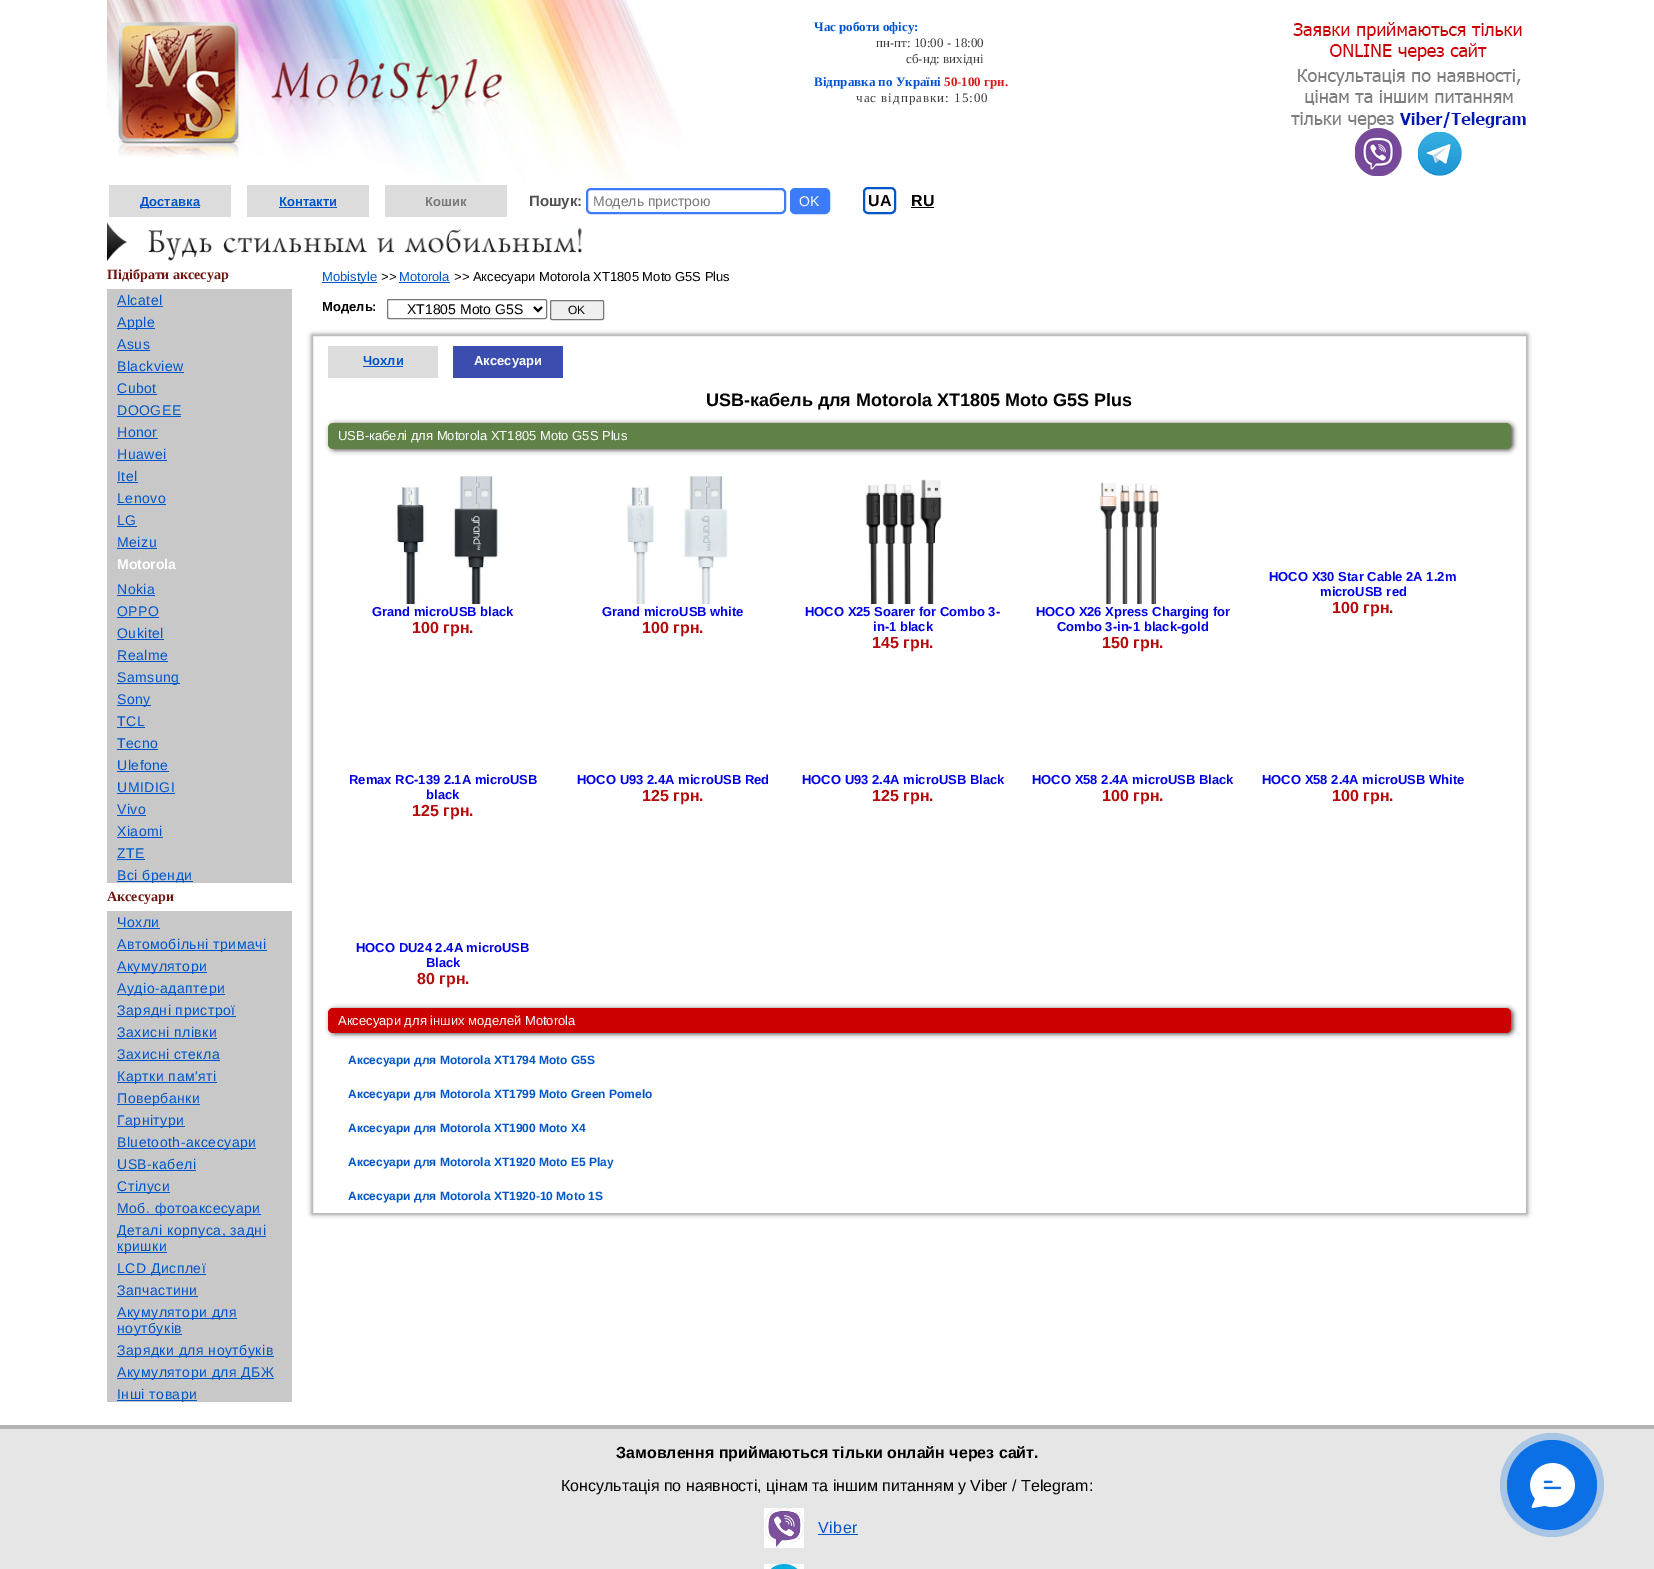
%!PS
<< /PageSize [1654 1569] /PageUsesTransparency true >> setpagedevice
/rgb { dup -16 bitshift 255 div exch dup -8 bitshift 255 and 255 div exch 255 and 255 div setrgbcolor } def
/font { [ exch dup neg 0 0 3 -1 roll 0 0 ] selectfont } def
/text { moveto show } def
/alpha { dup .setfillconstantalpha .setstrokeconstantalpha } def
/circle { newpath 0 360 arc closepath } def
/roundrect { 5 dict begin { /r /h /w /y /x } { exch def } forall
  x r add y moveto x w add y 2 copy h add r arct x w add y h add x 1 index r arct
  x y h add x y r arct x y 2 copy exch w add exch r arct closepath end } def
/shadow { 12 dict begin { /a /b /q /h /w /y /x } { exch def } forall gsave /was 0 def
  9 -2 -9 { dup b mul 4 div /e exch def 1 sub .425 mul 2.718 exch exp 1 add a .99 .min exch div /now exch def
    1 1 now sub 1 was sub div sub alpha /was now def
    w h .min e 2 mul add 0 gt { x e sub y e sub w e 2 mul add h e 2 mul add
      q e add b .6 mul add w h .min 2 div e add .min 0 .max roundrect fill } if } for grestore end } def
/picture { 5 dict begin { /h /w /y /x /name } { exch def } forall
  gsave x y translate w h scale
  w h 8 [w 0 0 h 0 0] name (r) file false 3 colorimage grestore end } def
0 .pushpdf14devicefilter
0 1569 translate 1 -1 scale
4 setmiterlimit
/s1 { /LiberationSerif-Bold 13 font 16#0054D1 rgb } def
/s2 { /LiberationSerif-Regular 13 font 16#3E3E3E rgb } def
/s3 { /LiberationSerif-Bold 13 font 16#D51D1B rgb } def
/s4 { /LiberationSans-Bold 13 font 16#0055C9 rgb } def
/s5 { /LiberationSans-Bold 13 font 16#787878 rgb } def
/s6 { /LiberationSans-Bold 15 font 16#505050 rgb } def
/s7 { /LiberationSans-Regular 14 font 16#787878 rgb } def
/s8 { /LiberationSans-Regular 14 font 16#FFFFFF rgb } def
/s9 { /LiberationSans-Bold 16 font 16#000000 rgb } def
/s10 { /LiberationSerif-Bold 14 font 16#6F140F rgb } def
/s11 { /LiberationSans-Bold 14 font 16#FFFFFF rgb } def
/s12 { /LiberationSans-Regular 13 font 16#0055C9 rgb } def
/s13 { /LiberationSans-Regular 13 font 16#000000 rgb } def
/s14 { /LiberationSans-Bold 13 font 16#000000 rgb } def
/s15 { /LiberationSans-Regular 14 font 16#000000 rgb } def
/s16 { /LiberationSans-Regular 12 font 16#000000 rgb } def
/s17 { /LiberationSans-Bold 13 font 16#FFFFFF rgb } def
/s18 { /LiberationSans-Bold 18 font 16#000000 rgb } def
/s19 { /LiberationSans-Regular 13 font 16#FFFFFF rgb } def
/s20 { /LiberationSans-Bold 13 font 16#0000E6 rgb } def
/s21 { /LiberationSans-Bold 16 font 16#B40A0A rgb } def
/s22 { /LiberationSans-Bold 12 font 16#0055C9 rgb } def
/s23 { /LiberationSans-Regular 16 font 16#000000 rgb } def
16#FFFFFF rgb
0 0 1654 1569 rectfill
(pic1.raw) 107 0 574 183 picture
s1
(Час роботи офісу:) 814 31 text
s2
(пн-пт: 10:00 - 18:00) 876 47 text
(сб-нд: вихідні) 906 63 text
s1
(Відправка по Україні) 814 86 text
s3
(50-100 грн.) 944 86 text
/LiberationSerif-Regular 13 font
16#3E3E3E rgb
856 102 moveto 1 0 (час відправки: 15:00) ashow
(pic2.raw) 1291 22 235 154 picture
16#DCDCDC rgb
109 185 122 32 rectfill
16#0055C9 rgb
140 207 60 1 rectfill
s4
(Доставка) 140 206 text
16#DCDCDC rgb
247 185 122 32 rectfill
s4
(Контакти) 279 206 text
279 207 58 1 rectfill
16#DCDCDC rgb
385 185 122 32 rectfill
s5
(Кошик) 425 206 text
s6
(Пошук:) 529 206 text
16#3C7CF9 rgb
2 setlinewidth
587 189 198 24 4 roundrect stroke
s7
(Модель пристрою) 593 206 text
16#3C7CF9 rgb
791 189 38 24 4 roundrect gsave fill grestore
stroke
s8
(OK) 799 206 text
16#0055C9 rgb
864 188 31 25 4 roundrect stroke
s9
(UA) 868 206 text
(RU) 911 206 text
911 207 23 1 rectfill
(pic3.raw) 107 222 475 40 picture
s10
(Підібрати аксесуар) 107 279 text
16#C8C8C8 rgb
107 289 185 594 rectfill
/LiberationSans-Regular 14 font
16#0055C9 rgb
117 305 moveto 0.5 0 (Alcatel) ashow
117 306 46 1 rectfill
117 328 38 1 rectfill
117 327 moveto 0.5 0 (Apple) ashow
117 349 moveto 0.5 0 (Asus) ashow
117 350 33 1 rectfill
117 371 moveto 0.5 0 (Blackview) ashow
117 372 67 1 rectfill
117 393 moveto 0.5 0 (Cubot) ashow
117 394 40 1 rectfill
117 415 moveto 0.5 0 (DOOGEE) ashow
117 416 64 1 rectfill
117 437 moveto 0.5 0 (Honor) ashow
117 438 41 1 rectfill
117 459 moveto 0.5 0 (Huawei) ashow
117 460 50 1 rectfill
117 481 moveto 0.5 0 (Itel) ashow
117 482 21 1 rectfill
117 503 moveto 0.5 0 (Lenovo) ashow
117 504 49 1 rectfill
117 525 moveto 0.5 0 (LG) ashow
117 526 20 1 rectfill
117 547 moveto 0.5 0 (Meizu) ashow
117 548 40 1 rectfill
s11
(Motorola) 117 569 text
/LiberationSans-Regular 14 font
16#0055C9 rgb
117 594 moveto 0.5 0 (Nokia) ashow
117 595 38 1 rectfill
117 616 moveto 0.5 0 (OPPO) ashow
117 617 42 1 rectfill
117 638 moveto 0.5 0 (Oukitel) ashow
117 639 47 1 rectfill
117 660 moveto 0.5 0 (Realme) ashow
117 661 51 1 rectfill
117 683 63 1 rectfill
117 682 moveto 0.5 0 (Samsung) ashow
117 705 34 1 rectfill
117 704 moveto 0.5 0 (Sony) ashow
117 726 moveto 0.5 0 (TCL) ashow
117 727 28 1 rectfill
117 748 moveto 0.5 0 (Tecno) ashow
117 749 41 1 rectfill
117 770 moveto 0.5 0 (Ulefone) ashow
117 771 52 1 rectfill
117 792 moveto 0.5 0 (UMIDIGI) ashow
117 793 58 1 rectfill
117 814 moveto 0.5 0 (Vivo) ashow
117 815 29 1 rectfill
117 836 moveto 0.5 0 (Xiaomi) ashow
117 837 46 1 rectfill
117 858 moveto 0.5 0 (ZTE) ashow
117 859 28 1 rectfill
117 881 76 1 rectfill
117 880 moveto 0.5 0 (Всі бренди) ashow
s10
(Аксесуари) 107 901 text
16#C8C8C8 rgb
107 911 185 491 rectfill
/LiberationSans-Regular 14 font
16#0055C9 rgb
117 927 moveto 0.5 0 (Чохли) ashow
117 928 43 1 rectfill
117 950 150 1 rectfill
117 949 moveto 0.5 0 (Автомобільні тримачі) ashow
117 972 90 1 rectfill
117 971 moveto 0.5 0 (Акумулятори) ashow
117 994 108 1 rectfill
117 993 moveto 0.5 0 (Аудіо-адаптери) ashow
117 1016 119 1 rectfill
117 1015 moveto 0.5 0 (Зарядні пристрої) ashow
117 1037 moveto 0.5 0 (Захисні плівки) ashow
117 1038 100 1 rectfill
117 1059 moveto 0.5 0 (Захисні стекла) ashow
117 1060 103 1 rectfill
117 1082 100 1 rectfill
117 1081 moveto 0.5 0 (Картки пам'яті) ashow
117 1104 83 1 rectfill
117 1103 moveto 0.5 0 (Повербанки) ashow
117 1126 68 1 rectfill
117 1125 moveto 0.5 0 (Гарнітури) ashow
117 1148 139 1 rectfill
117 1147 moveto 0.5 0 (Bluetooth-аксесуари) ashow
117 1169 moveto 0.5 0 (USB-кабелі) ashow
117 1170 79 1 rectfill
117 1192 53 1 rectfill
117 1191 moveto 0.5 0 (Стілуси) ashow
117 1214 144 1 rectfill
117 1213 moveto 0.5 0 (Моб. фотоаксесуари) ashow
117 1236 149 1 rectfill
117 1235 moveto 0.5 0 (Деталі корпуса, задні) ashow
117 1252 50 1 rectfill
117 1251 moveto 0.5 0 (кришки) ashow
117 1274 89 1 rectfill
117 1273 moveto 0.5 0 (LCD Дисплеї) ashow
117 1295 moveto 0.5 0 (Запчастини) ashow
117 1296 81 1 rectfill
117 1318 120 1 rectfill
117 1317 moveto 0.5 0 (Акумулятори для) ashow
117 1334 65 1 rectfill
117 1333 moveto 0.5 0 (ноутбуків) ashow
117 1356 157 1 rectfill
117 1355 moveto 0.5 0 (Зарядки для ноутбуків) ashow
117 1378 157 1 rectfill
117 1377 moveto 0.5 0 (Акумулятори для ДБЖ) ashow
117 1400 80 1 rectfill
117 1399 moveto 0.5 0 (Інші товари) ashow
322 282 55 1 rectfill
s12
(Mobistyle) 322 281 text
s13
(>>) 381 281 text
s12
(Motorola) 399 281 text
399 282 51 1 rectfill
s13
(>> Аксесуари Motorola XT1805 Moto G5S Plus) 454 281 text
s14
(Модель:) 322 311 text
16#767676 rgb
1 setlinewidth
387.5 299.5 159 19 1.5 roundrect stroke
16#000000 rgb
2 setlinewidth
534 307 moveto 538 311 lineto 542 307 lineto stroke
s15
(XT1805 Moto G5S) 407 314 text
16#EFEFEF rgb
550.5 300.5 53 19 1.5 roundrect gsave fill grestore
16#767676 rgb
1 setlinewidth
stroke
s16
(OK) 568 314 text
gsave
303 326 moveto 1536 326 lineto 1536 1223 lineto 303 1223 lineto closepath 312 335 moveto 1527 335 lineto 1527 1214 lineto 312 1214 lineto closepath eoclip newpath
312 335 1215 879 0 2.5 0.5 shadow
grestore
16#BBBBBB rgb
312.5 335.5 1214 878 rectstroke
16#DCDCDC rgb
328 346 110 32 rectfill
s4
(Чохли) 363 365 text
363 366 40 1 rectfill
16#3B4EAF rgb
453 346 110 32 rectfill
s17
(Аксесуари) 474 365 text
s18
(USB-кабель для Motorola XT1805 Moto G5S Plus) 706 406 text
330 424 1183 26 5 2.5 0.7 shadow
16#618247 rgb
328 423 1183 26 5 roundrect fill
s19
(USB-кабелі для Motorola XT1805 Moto G5S Plus) 338 440 text
s20
(HOCO X30 Star Cable 2A 1.2m) 1269 581 text
(microUSB red) 1320 596 text
s21
(100 грн.) 1332 613 text
(pic4.raw) 395 476 103 128 picture
s20
(Grand microUSB black) 372 616 text
s21
(100 грн.) 412 633 text
(pic5.raw) 627 476 101 128 picture
s20
(Grand microUSB white) 602 616 text
s21
(100 грн.) 642 633 text
(pic6.raw) 865 479 77 125 picture
s20
(HOCO X25 Soarer for Combo 3-) 805 616 text
(in-1 black) 873 631 text
s21
(145 грн.) 872 648 text
(pic7.raw) 1095 482 65 122 picture
s20
(HOCO X26 Xpress Charging for) 1036 616 text
(Combo 3-in-1 black-gold) 1057 631 text
s21
(150 грн.) 1102 648 text
s20
(Remax RC-139 2.1A microUSB) 349 784 text
(black) 426 799 text
s21
(125 грн.) 412 816 text
s20
(HOCO U93 2.4A microUSB Red) 577 784 text
s21
(125 грн.) 642 801 text
s20
(HOCO U93 2.4A microUSB Black) 802 784 text
s21
(125 грн.) 872 801 text
s20
(HOCO X58 2.4A microUSB Black) 1032 784 text
s21
(100 грн.) 1102 801 text
s20
(HOCO X58 2.4A microUSB White) 1262 784 text
s21
(100 грн.) 1332 801 text
s20
(HOCO DU24 2.4A microUSB) 356 952 text
(Black) 426 967 text
s21
(80 грн.) 417 984 text
16#000000 rgb
330 1009 1183 25 5 2.5 0.7 shadow
16#CD0000 rgb
328 1008 1183 25 5 roundrect fill
s19
(Аксесуари для інших моделей Motorola) 338 1025 text
s22
(Аксесуари для Motorola XT1794 Moto G5S) 348 1064 text
(Аксесуари для Motorola XT1799 Moto Green Pomelo) 348 1098 text
(Аксесуари для Motorola XT1900 Moto X4) 348 1132 text
(Аксесуари для Motorola XT1920 Moto E5 Play) 348 1166 text
(Аксесуари для Motorola XT1920-10 Moto 1S) 348 1200 text
16#E6E6E6 rgb
0 1429 1654 140 rectfill
16#B4B4B4 rgb
0 1425 1654 4 rectfill
s9
(Замовлення приймаються тільки онлайн через сайт.) 616 1458 text
s23
(Консультація по наявності, цінам та іншим питанням у Viber / Telegram:) 561 1491 text
(pic8.raw) 764 1508 40 40 picture
16#0055C9 rgb
818 1533 moveto 0.5 0 (Viber) ashow
818 1534 40 1 rectfill
(pic9.raw) 764 1564 40 5 picture
16#0B70E6 rgb
1552 1485 45 circle fill
0.15 alpha
1552 1485 52 circle fill
1552 1485 52 circle fill
1 alpha
(pic10.raw) 1530 1463 45 45 picture
.poppdf14devicefilter showpage
